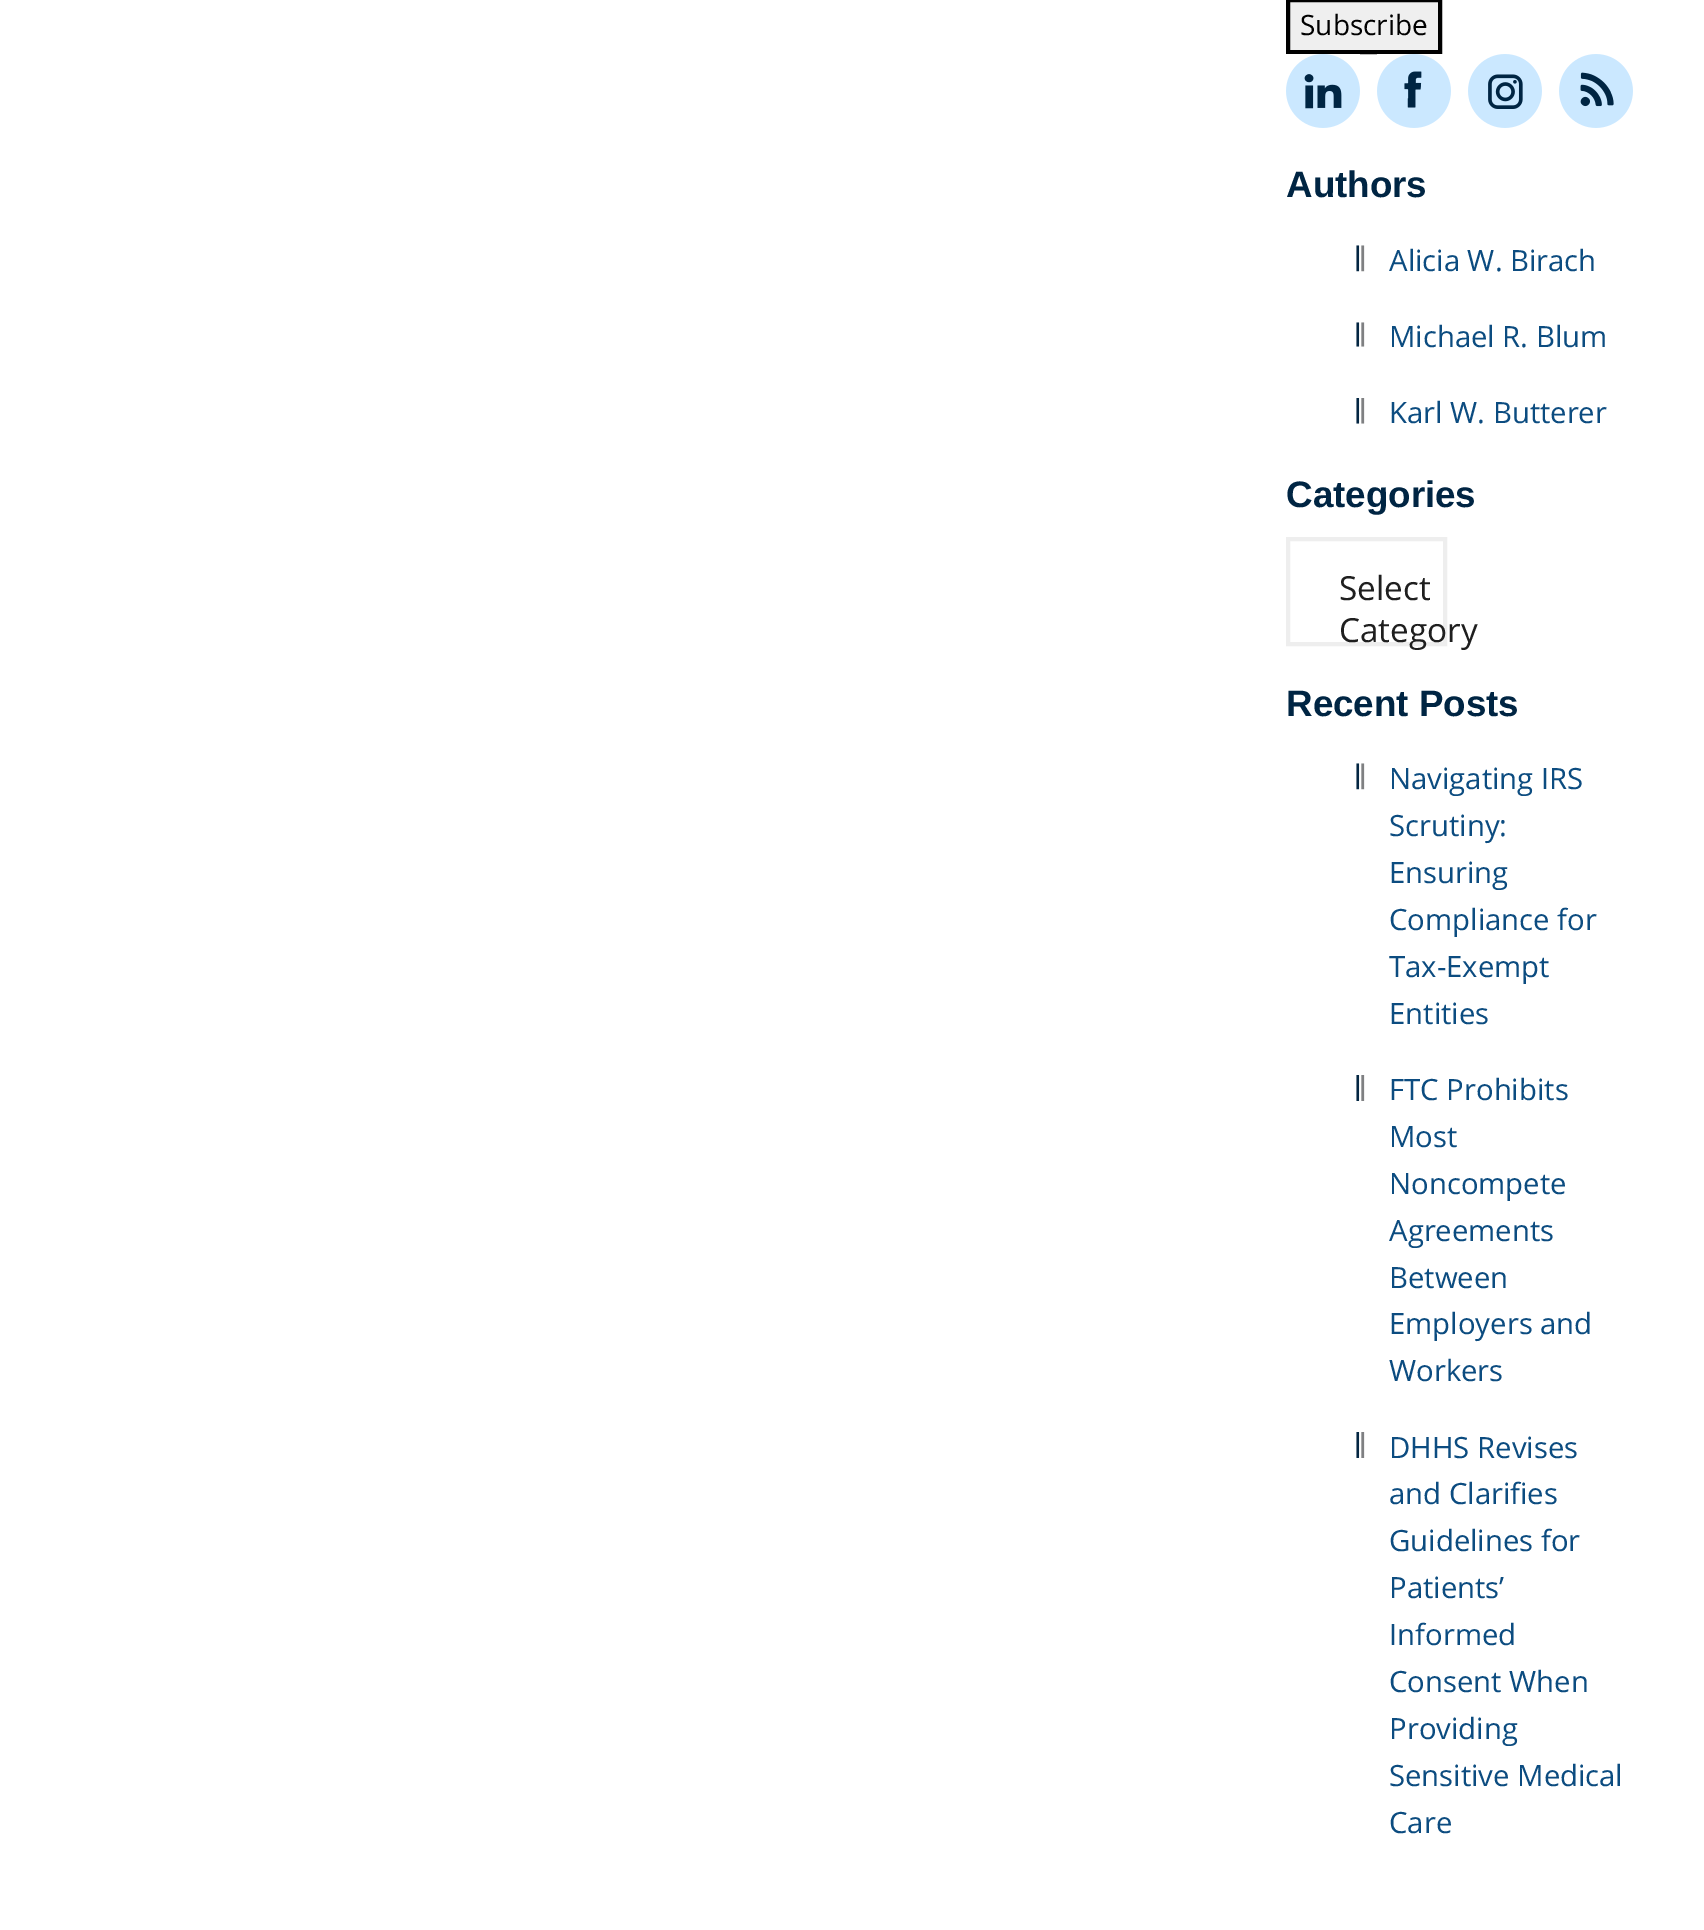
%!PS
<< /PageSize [1704 1930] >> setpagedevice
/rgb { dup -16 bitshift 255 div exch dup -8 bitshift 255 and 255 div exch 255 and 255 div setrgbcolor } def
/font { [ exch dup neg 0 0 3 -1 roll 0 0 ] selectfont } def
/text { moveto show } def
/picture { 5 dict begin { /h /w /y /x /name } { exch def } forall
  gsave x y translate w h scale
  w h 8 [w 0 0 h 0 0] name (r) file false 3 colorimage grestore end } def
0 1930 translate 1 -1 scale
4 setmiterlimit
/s1 { /OpenSans-Regular 28 font 16#000000 rgb } def
/s2 { /LiberationSans-Bold 36.75 font 16#002543 rgb } def
/s3 { /OpenSans-Regular 29.25 font 16#0C4C80 rgb } def
/s4 { /OpenSans-Regular 33.25 font 16#1F1F1F rgb } def
16#FFFFFF rgb
0 0 1704 1930 rectfill
16#EFEFEF rgb
1288 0 moveto 1440 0 lineto 1440 52 lineto 1288 52 lineto closepath gsave fill grestore
16#000000 rgb
4 setlinewidth
stroke
s1
(Subscribe) 1300 35 text
(pic1.raw) 1286 54 74 74 picture
(pic2.raw) 1377 54 74 74 picture
(pic3.raw) 1468 54 74 74 picture
(pic4.raw) 1559 54 74 74 picture
s2
(Authors) 1286 197 text
(pic5.raw) 1356 245 9 27 picture
s3
(Alicia W. Birach) 1389 271 text
(pic6.raw) 1356 322 9 25 picture
(Michael R. Blum) 1389 347 text
(pic7.raw) 1356 398 9 26 picture
(Karl W. Butterer) 1389 423 text
s2
(Categories) 1286 507 text
16#EEEEEE rgb
1288 539 157 105 rectstroke
s4
(Select) 1339 600 text
(Category) 1339 642 text
s2
(Recent Posts) 1286 716 text
(pic5.raw) 1356 763 9 27 picture
s3
(Navigating IRS) 1389 789 text
(Scrutiny:) 1389 836 text
(Ensuring) 1389 883 text
(Compliance for) 1389 930 text
(Tax-Exempt) 1389 977 text
(Entities) 1389 1024 text
(pic8.raw) 1356 1075 9 26 picture
(FTC Prohibits) 1389 1100 text
(Most) 1389 1147 text
(Noncompete) 1389 1194 text
(Agreements) 1389 1241 text
(Between) 1389 1288 text
(Employers and) 1389 1334 text
(Workers) 1389 1381 text
(pic8.raw) 1356 1432 9 26 picture
(DHHS Revises) 1389 1458 text
(and Clarifies) 1389 1504 text
(Guidelines for) 1389 1551 text
(Patients’) 1389 1598 text
(Informed) 1389 1645 text
(Consent When) 1389 1692 text
(Providing) 1389 1739 text
(Sensitive Medical) 1389 1786 text
(Care) 1389 1833 text
showpage
